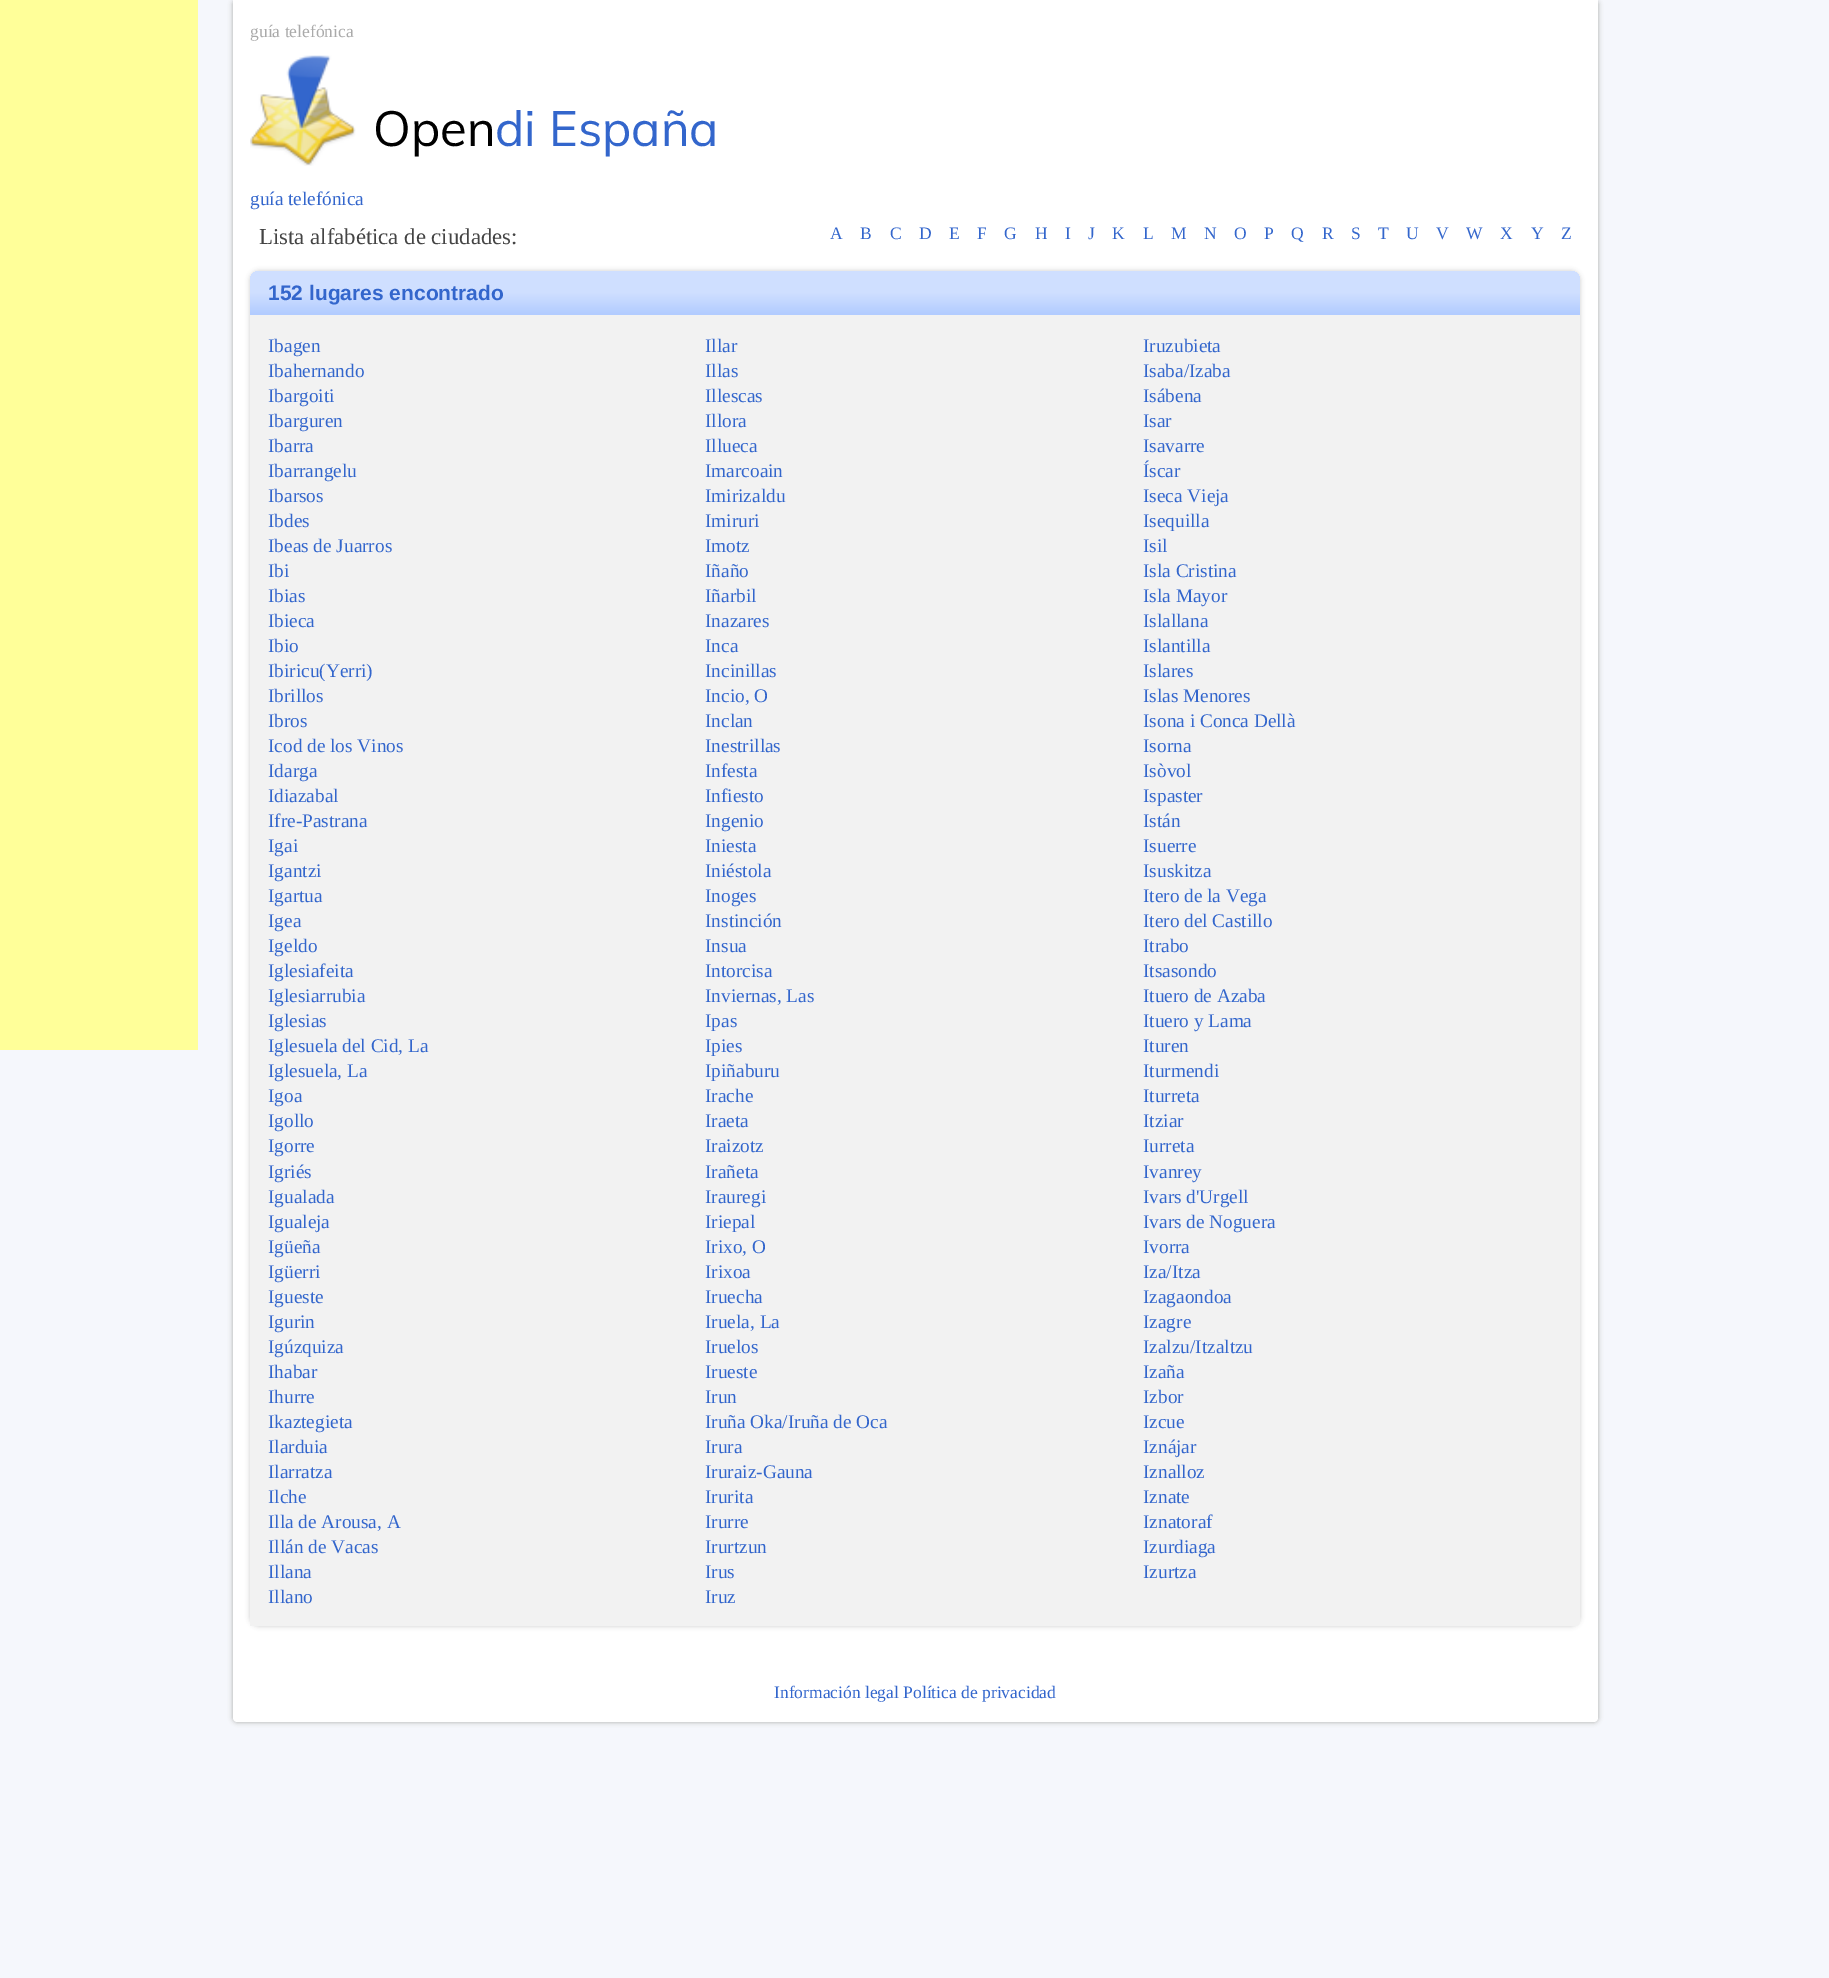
%!PS
<< /PageSize [1829 1978] /PageUsesTransparency true >> setpagedevice
/rgb { dup -16 bitshift 255 div exch dup -8 bitshift 255 and 255 div exch 255 and 255 div setrgbcolor } def
/font { [ exch dup neg 0 0 3 -1 roll 0 0 ] selectfont } def
/text { moveto show } def
/alpha { dup .setfillconstantalpha .setstrokeconstantalpha } def
/roundrect { 5 dict begin { /r /h /w /y /x } { exch def } forall
  x r add y moveto x w add y 2 copy h add r arct x w add y h add x 1 index r arct
  x y h add x y r arct x y 2 copy exch w add exch r arct closepath end } def
/shadow { 12 dict begin { /a /b /q /h /w /y /x } { exch def } forall gsave /was 0 def
  9 -2 -9 { dup b mul 4 div /e exch def 1 sub .425 mul 2.718 exch exp 1 add a .99 .min exch div /now exch def
    1 1 now sub 1 was sub div sub alpha /was now def
    w h .min e 2 mul add 0 gt { x e sub y e sub w e 2 mul add h e 2 mul add
      q e add b .6 mul add w h .min 2 div e add .min 0 .max roundrect fill } if } for grestore end } def
/picture { 5 dict begin { /h /w /y /x /name } { exch def } forall
  gsave x y translate w h scale
  w h 8 [w 0 0 h 0 0] name (r) file false 3 colorimage grestore end } def
0 .pushpdf14devicefilter
0 1978 translate 1 -1 scale
4 setmiterlimit
/s1 { /LiberationSerif-Regular 17.5 font 16#AAAAAA rgb } def
/s2 { /Muli-Regular 49 font 16#000000 rgb } def
/s3 { /Muli-Regular 49 font 16#3366CC rgb } def
/s4 { /LiberationSerif-Regular 19.25 font 16#3366CC rgb } def
/s5 { /LiberationSerif-Regular 22.75 font 16#444444 rgb } def
/s6 { /LiberationSerif-Regular 17.5 font 16#3366CC rgb } def
/s7 { /LiberationSans-Bold 21 font 16#3366CC rgb } def
16#F5F7FC rgb
0 0 1829 1978 rectfill
16#AAAAAA rgb
233 0 1365 1722 4 2.5 1 shadow
16#FFFFFF rgb
233 0 moveto 1598 0 lineto 1598 1718 lineto 1598 1720 1596 1722 1594 1722 curveto 237 1722 lineto 235 1722 233 1720 233 1718 curveto closepath fill
16#FFFF99 rgb
0 0 198 1050 rectfill
s1
(guía telefónica) 250 37 text
(pic1.raw) 250 55 106 111 picture
s2
(Open) 373 146 text
s3
(di España) 495 146 text
s4
(guía telefónica) 250 205 text
s5
(Lista alfabética de ciudades:) 259 244 text
s6
(A) 830 239 text
(B) 860 239 text
(C) 890 239 text
(D) 919 239 text
(E) 949 239 text
(F) 977 239 text
(G) 1004 239 text
(H) 1035 239 text
(I) 1065 239 text
(J) 1088 239 text
(K) 1112 239 text
(L) 1143 239 text
(M) 1171 239 text
(N) 1204 239 text
(O) 1234 239 text
(P) 1264 239 text
(Q) 1291 239 text
(R) 1322 239 text
(S) 1351 239 text
(T) 1378 239 text
(U) 1406 239 text
(V) 1436 239 text
(W) 1466 239 text
(X) 1500 239 text
(Y) 1531 239 text
(Z) 1561 239 text
16#CCCCCC rgb
250 271 1330 1355 9 2.5 1 shadow
16#F2F2F2 rgb
259 271 moveto 1571 271 lineto 1576 271 1580 275 1580 280 curveto 1580 1622 lineto 1580 1624 1578 1626 1576 1626 curveto 254 1626 lineto 252 1626 250 1624 250 1622 curveto 250 280 lineto 250 275 254 271 259 271 curveto closepath fill
gsave 259 271 moveto 1571 271 lineto 1576 271 1580 275 1580 280 curveto 1580 315 lineto 250 315 lineto 250 280 lineto 250 275 254 271 259 271 curveto closepath clip newpath
<< /ShadingType 2 /ColorSpace /DeviceRGB /Coords [250 315 250 271] /Extend [true true] /Function << /FunctionType 3 /Domain [0 1] /Functions [<< /FunctionType 2 /Domain [0 1] /C0 [0.698 0.8 1] /C1 [0.698 0.8 1] /N 1 >> << /FunctionType 2 /Domain [0 1] /C0 [0.698 0.8 1] /C1 [0.812 0.875 1] /N 1 >> << /FunctionType 2 /Domain [0 1] /C0 [0.812 0.875 1] /C1 [0.812 0.875 1] /N 1 >>] /Bounds [0.02 0.5] /Encode [0 1 0 1 0 1] >> >> shfill grestore
s7
(152 lugares encontrado) 268 300 text
16#F2F2F2 rgb
250 1624 2 2 rectfill
s4
(Ibagen) 268 352 text
(Ibahernando) 268 377 text
(Ibargoiti) 268 402 text
(Ibarguren) 268 427 text
(Ibarra) 268 452 text
(Ibarrangelu) 268 477 text
(Ibarsos) 268 502 text
(Ibdes) 268 527 text
(Ibeas de Juarros) 268 552 text
(Ibi) 268 577 text
(Ibias) 268 602 text
(Ibieca) 268 627 text
(Ibio) 268 652 text
(Ibiricu\(Yerri\)) 268 677 text
(Ibrillos) 268 702 text
(Ibros) 268 727 text
(Icod de los Vinos) 268 752 text
(Idarga) 268 777 text
(Idiazabal) 268 802 text
(Ifre-Pastrana) 268 827 text
(Igai) 268 852 text
(Igantzi) 268 877 text
(Igartua) 268 902 text
(Igea) 268 927 text
(Igeldo) 268 952 text
(Iglesiafeita) 268 977 text
(Iglesiarrubia) 268 1002 text
(Iglesias) 268 1027 text
(Iglesuela del Cid, La) 268 1052 text
(Iglesuela, La) 268 1077 text
(Igoa) 268 1102 text
(Igollo) 268 1127 text
(Igorre) 268 1152 text
(Igriés) 268 1178 text
(Igualada) 268 1203 text
(Igualeja) 268 1228 text
(Igüeña) 268 1253 text
(Igüerri) 268 1278 text
(Igueste) 268 1303 text
(Igurin) 268 1328 text
(Igúzquiza) 268 1353 text
(Ihabar) 268 1378 text
(Ihurre) 268 1403 text
(Ikaztegieta) 268 1428 text
(Ilarduia) 268 1453 text
(Ilarratza) 268 1478 text
(Ilche) 268 1503 text
(Illa de Arousa, A) 268 1528 text
(Illán de Vacas) 268 1553 text
(Illana) 268 1578 text
(Illano) 268 1603 text
(Illar) 705 352 text
(Illas) 705 377 text
(Illescas) 705 402 text
(Illora) 705 427 text
(Illueca) 705 452 text
(Imarcoain) 705 477 text
(Imirizaldu) 705 502 text
(Imiruri) 705 527 text
(Imotz) 705 552 text
(Iñaño) 705 577 text
(Iñarbil) 705 602 text
(Inazares) 705 627 text
(Inca) 705 652 text
(Incinillas) 705 677 text
(Incio, O) 705 702 text
(Inclan) 705 727 text
(Inestrillas) 705 752 text
(Infesta) 705 777 text
(Infiesto) 705 802 text
(Ingenio) 705 827 text
(Iniesta) 705 852 text
(Iniéstola) 705 877 text
(Inoges) 705 902 text
(Instinción) 705 927 text
(Insua) 705 952 text
(Intorcisa) 705 977 text
(Inviernas, Las) 705 1002 text
(Ipas) 705 1027 text
(Ipies) 705 1052 text
(Ipiñaburu) 705 1077 text
(Irache) 705 1102 text
(Iraeta) 705 1127 text
(Iraizotz) 705 1152 text
(Irañeta) 705 1178 text
(Irauregi) 705 1203 text
(Iriepal) 705 1228 text
(Irixo, O) 705 1253 text
(Irixoa) 705 1278 text
(Iruecha) 705 1303 text
(Iruela, La) 705 1328 text
(Iruelos) 705 1353 text
(Irueste) 705 1378 text
(Irun) 705 1403 text
(Iruña Oka/Iruña de Oca) 705 1428 text
(Irura) 705 1453 text
(Iruraiz-Gauna) 705 1478 text
(Irurita) 705 1503 text
(Irurre) 705 1528 text
(Irurtzun) 705 1553 text
(Irus) 705 1578 text
(Iruz) 705 1603 text
(Iruzubieta) 1143 352 text
(Isaba/Izaba) 1143 377 text
(Isábena) 1143 402 text
(Isar) 1143 427 text
(Isavarre) 1143 452 text
(Íscar) 1143 477 text
(Iseca Vieja) 1143 502 text
(Isequilla) 1143 527 text
(Isil) 1143 552 text
(Isla Cristina) 1143 577 text
(Isla Mayor) 1143 602 text
(Islallana) 1143 627 text
(Islantilla) 1143 652 text
(Islares) 1143 677 text
(Islas Menores) 1143 702 text
(Isona i Conca Dellà) 1143 727 text
(Isorna) 1143 752 text
(Isòvol) 1143 777 text
(Ispaster) 1143 802 text
(Istán) 1143 827 text
(Isuerre) 1143 852 text
(Isuskitza) 1143 877 text
(Itero de la Vega) 1143 902 text
(Itero del Castillo) 1143 927 text
(Itrabo) 1143 952 text
(Itsasondo) 1143 977 text
(Ituero de Azaba) 1143 1002 text
(Ituero y Lama) 1143 1027 text
(Ituren) 1143 1052 text
(Iturmendi) 1143 1077 text
(Iturreta) 1143 1102 text
(Itziar) 1143 1127 text
(Iurreta) 1143 1152 text
(Ivanrey) 1143 1178 text
(Ivars d'Urgell) 1143 1203 text
(Ivars de Noguera) 1143 1228 text
(Ivorra) 1143 1253 text
(Iza/Itza) 1143 1278 text
(Izagaondoa) 1143 1303 text
(Izagre) 1143 1328 text
(Izalzu/Itzaltzu) 1143 1353 text
(Izaña) 1143 1378 text
(Izbor) 1143 1403 text
(Izcue) 1143 1428 text
(Iznájar) 1143 1453 text
(Iznalloz) 1143 1478 text
(Iznate) 1143 1503 text
(Iznatoraf) 1143 1528 text
(Izurdiaga) 1143 1553 text
(Izurtza) 1143 1578 text
s6
(Información legal Política de privacidad) 774 1698 text
.poppdf14devicefilter showpage
